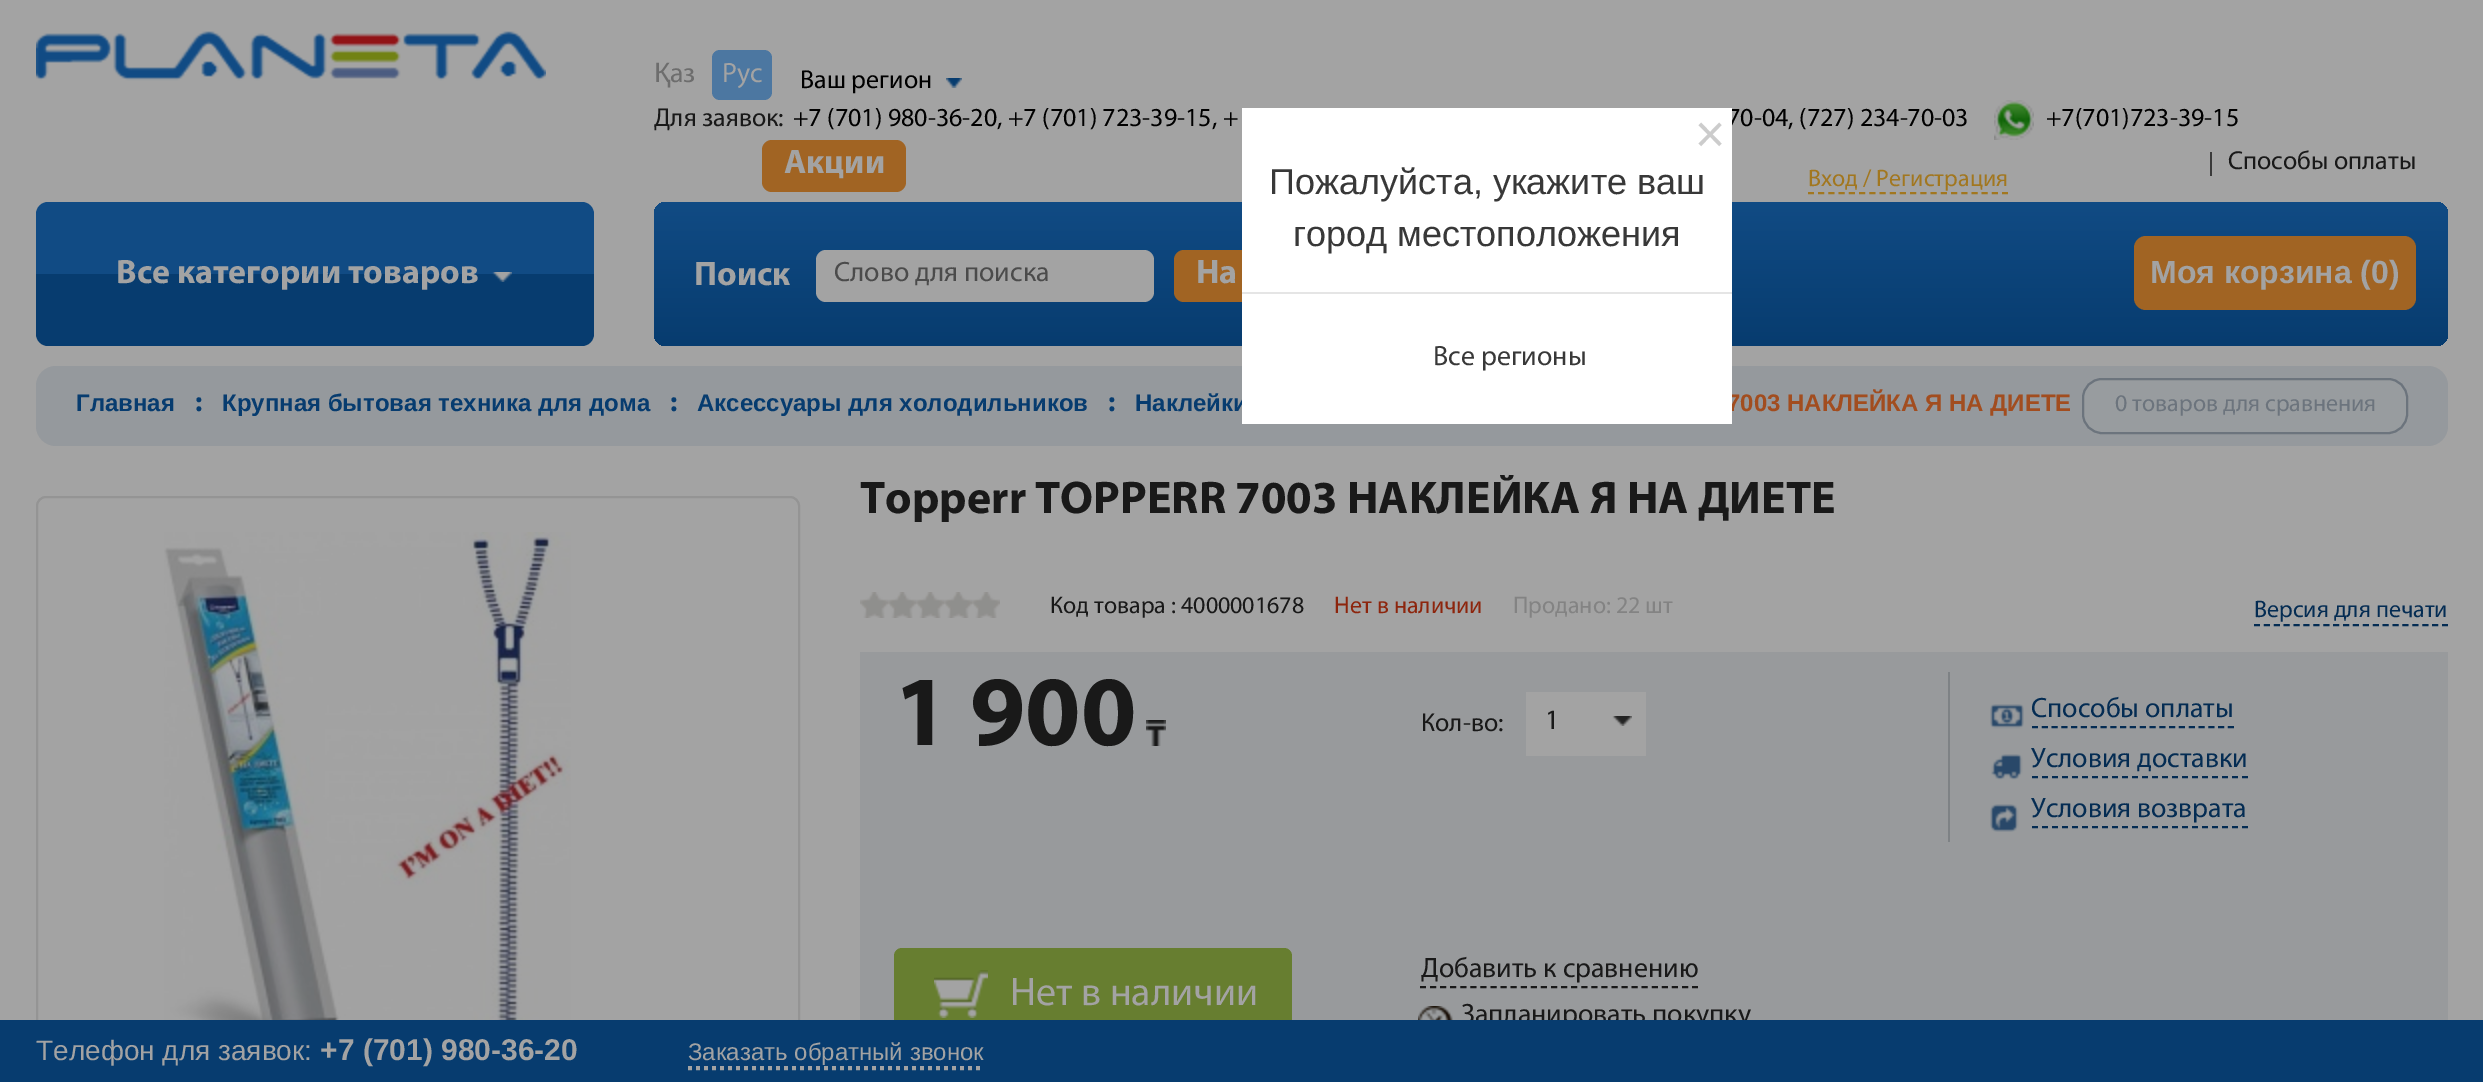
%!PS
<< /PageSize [2483 1082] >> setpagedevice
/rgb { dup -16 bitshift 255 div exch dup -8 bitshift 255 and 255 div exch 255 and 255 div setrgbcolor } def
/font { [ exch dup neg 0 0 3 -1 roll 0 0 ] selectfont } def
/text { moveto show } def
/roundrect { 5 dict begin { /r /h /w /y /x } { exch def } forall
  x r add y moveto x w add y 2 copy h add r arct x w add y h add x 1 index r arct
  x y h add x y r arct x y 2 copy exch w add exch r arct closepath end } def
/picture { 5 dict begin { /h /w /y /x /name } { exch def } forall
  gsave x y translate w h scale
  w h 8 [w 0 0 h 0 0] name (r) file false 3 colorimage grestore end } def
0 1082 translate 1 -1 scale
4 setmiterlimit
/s1 { /LiberationSans-Regular 28 font 16#6D6D6D rgb } def
/s2 { /Myriad-Regular 28 font 16#6D6D6D rgb } def
/s3 { /Myriad-Regular 28 font 16#A3A3A3 rgb } def
/s4 { /Myriad-Regular 26 font 16#000000 rgb } def
/s5 { /Myriad-Regular 26 font 16#191919 rgb } def
/s6 { /Myriad-Bold 34 font 16#A3A3A3 rgb } def
/s7 { /Myriad-Regular 24 font 16#A2771F rgb } def
/s8 { /Myriad-Regular 28 font 16#4B4B4B rgb } def
/s9 { /LiberationSans-Bold 32 font 16#A3A3A3 rgb } def
/s10 { /LiberationSans-Bold 24 font 16#073C6F rgb } def
/s11 { /Myriad-Bold 28 font 16#073C6F rgb } def
/s12 { /LiberationSans-Bold 24 font 16#A24D1F rgb } def
/s13 { /Myriad-Regular 24 font 16#6C747D rgb } def
/s14 { /Myriad-Bold 46 font 16#191919 rgb } def
/s15 { /Myriad-Regular 24 font 16#191919 rgb } def
/s16 { /Myriad-Regular 24 font 16#8D250D rgb } def
/s17 { /Myriad-Regular 24 font 16#838383 rgb } def
/s18 { /Myriad-Regular 24 font 16#042C53 rgb } def
/s19 { /Myriad-Bold 100 font 16#191919 rgb } def
/s20 { /Myriad-Regular 40 font 16#A3A3A3 rgb } def
/s21 { /Myriad-Regular 28 font 16#191919 rgb } def
/s22 { /Myriad-Regular 28 font 16#042C53 rgb } def
/s23 { /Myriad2-Bold 42 font 16#CCCCCC rgb } def
/s24 { /LiberationSans-Regular 36 font 16#383838 rgb } def
/s25 { /Myriad-Regular 28 font 16#383838 rgb } def
/s26 { /LiberationSans-Regular 28 font 16#A3A3A3 rgb } def
/s27 { /LiberationSans-Bold 30 font 16#A3A3A3 rgb } def
/s28 { /LiberationSans-Regular 24 font 16#A3A3A3 rgb } def
16#A3A3A3 rgb
0 0 2483 1082 rectfill
(pic1.raw) 36 31 510 50 picture
s1
(Қ) 654 82 text
s2
(аз) 670 82 text
16#4C77A1 rgb
712 50 60 50 8 roundrect fill
s3
(Рус) 722 82 text
s4
(Ваш регион) 800 88 text
(pic2.raw) 946 78 16 10 picture
s5
(Для заявок:) 654 126 text
s4
(+7 \(701\) 980-36-20, +7 \(701\) 723-39-15, +) 793 126 text
(70-04, \(727\) 234-70-03) 1727 126 text
(pic3.raw) 1994 100 40 40 picture
(+7\(701\)723-39-15) 2046 126 text
16#A16423 rgb
762 140 144 52 10 roundrect fill
s6
(Акции) 784 173 text
16#3A3A3A rgb
2210 152 2 24 rectfill
s5
(Способы оплаты) 2228 169 text
s7
(Вход / Регистрация) 1808 186 text
2 setlinewidth
[6 4.22] 0 setdash
1808 193 moveto 2008 193 lineto stroke
16#114B84 rgb
48 202 moveto 582 202 lineto 588.5 202 594 207.5 594 214 curveto 594 274 lineto 36 274 lineto 36 214 lineto 36 207.5 41.5 202 48 202 curveto closepath fill
16#073C6F rgb
36 274 moveto 594 274 lineto 594 334 lineto 594 340.5 588.5 346 582 346 curveto 48 346 lineto 41.5 346 36 340.5 36 334 curveto closepath fill
s6
(Все категории товаров) 116 283 text
(pic4.raw) 492 272 20 10 picture
gsave 654 202 1794 144 12 roundrect clip newpath
<< /ShadingType 2 /ColorSpace /DeviceRGB /Coords [1551 202 1551 346] /Extend [true true] /Function << /FunctionType 2 /Domain [0 1] /C0 [0.067 0.294 0.518] /C1 [0.027 0.235 0.435] /N 1 >> >> shfill grestore
(Поиск) 694 285 text
816 250 338 52 10 roundrect fill
s8
(Слово для поиска) 834 281 text
16#A16423 rgb
1174 250 142 52 10 roundrect fill
s6
(На) 1196 283 text
16#A16423 rgb
2134 236 282 74 12 roundrect fill
s9
(Моя корзина \(0\)) 2150 283 text
16#95999D rgb
36 366 2412 80 20 roundrect fill
s10
(Главная) 76 411 text
s11
(:) 195 411 text
s10
(Крупная бытовая техника для дома) 222 411 text
s11
(:) 670 411 text
s10
(Аксессуары для холодильников) 697 411 text
s11
(:) 1108 411 text
s10
(Наклейки) 1135 411 text
s12
(7003 НАКЛЕЙКА Я НА ДИЕТЕ) 1727 411 text
16#989C9F rgb
2083 379 324 54 19 roundrect gsave fill grestore
16#6C747D rgb
[] 0 setdash
stroke
s13
(0 товаров для сравнения) 2115 411 text
16#949494 rgb
37 497 762 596 9 roundrect stroke
(pic5.raw) 164 532 407 488 picture
s14
(Topperr TOPPERR 7003 НАКЛЕЙКА Я НА ДИЕТЕ) 860 513 text
(pic6.raw) 860 592 28 26 picture
(pic6.raw) 888 592 28 26 picture
(pic6.raw) 916 592 28 26 picture
(pic6.raw) 944 592 28 26 picture
(pic6.raw) 972 592 28 26 picture
s15
(Код товара : 4000001678) 1050 613 text
s16
(Нет в наличии) 1334 613 text
s17
(Продано: 22 шт) 1513 613 text
s18
(Версия для печати) 2254 617 text
[6 3.9] 0 setdash
2254 625 moveto 2448 625 lineto stroke
16#989A9C rgb
860 652 1588 368 rectfill
s19
(1 900) 894 745 text
(pic7.raw) 1146 720 20 26 picture
16#677E30 rgb
894 948 398 98 8 roundrect fill
(pic8.raw) 934 970 54 48 picture
s20
(Нет в наличии) 1010 1005 text
s5
(Кол-во:) 1421 731 text
16#A3A3A3 rgb
1526 692 120 64 rectfill
s21
(1) 1545 729 text
(pic9.raw) 1612 716 20 10 picture
(Добавить к сравнению) 1421 977 text
[6 4.08] 0 setdash
1420 987 moveto 1698 987 lineto stroke
(pic10.raw) 1418 1006 36 14 picture
(Запланировать покупку) 1461 1023 text
16#7E8285 rgb
1948 672 2 170 rectfill
(pic11.raw) 1990 704 34 25 picture
s22
(Способы оплаты) 2031 717 text
[6 3.8] 0 setdash
2032 727 moveto 2234 727 lineto stroke
(pic12.raw) 1991 754 32 26 picture
(Условия доставки) 2031 767 text
[6 4] 0 setdash
2032 777 moveto 2248 777 lineto stroke
(pic13.raw) 1990 804 29 28 picture
(Условия возврата) 2031 817 text
2032 827 moveto 2248 827 lineto stroke
16#FFFFFF rgb
1242 108 490 316 rectfill
16#E5E5E5 rgb
1242 292 490 2 rectfill
s23
(×) 1697 146 text
s24
(Пожалуйста, укажите ваш) 1269 194 text
(город местоположения) 1293 246 text
s25
(Все регионы) 1433 365 text
16#073C6F rgb
0 1020 2483 62 rectfill
s26
(Телефон для заявок:) 36 1060 text
s27
(+7 \(701\) 980-36-20) 320 1060 text
s28
(Заказать обратный звонок) 688 1060 text
4 setlinewidth
[4 4] 0 setdash
688 1068 moveto 984 1068 lineto stroke
showpage
